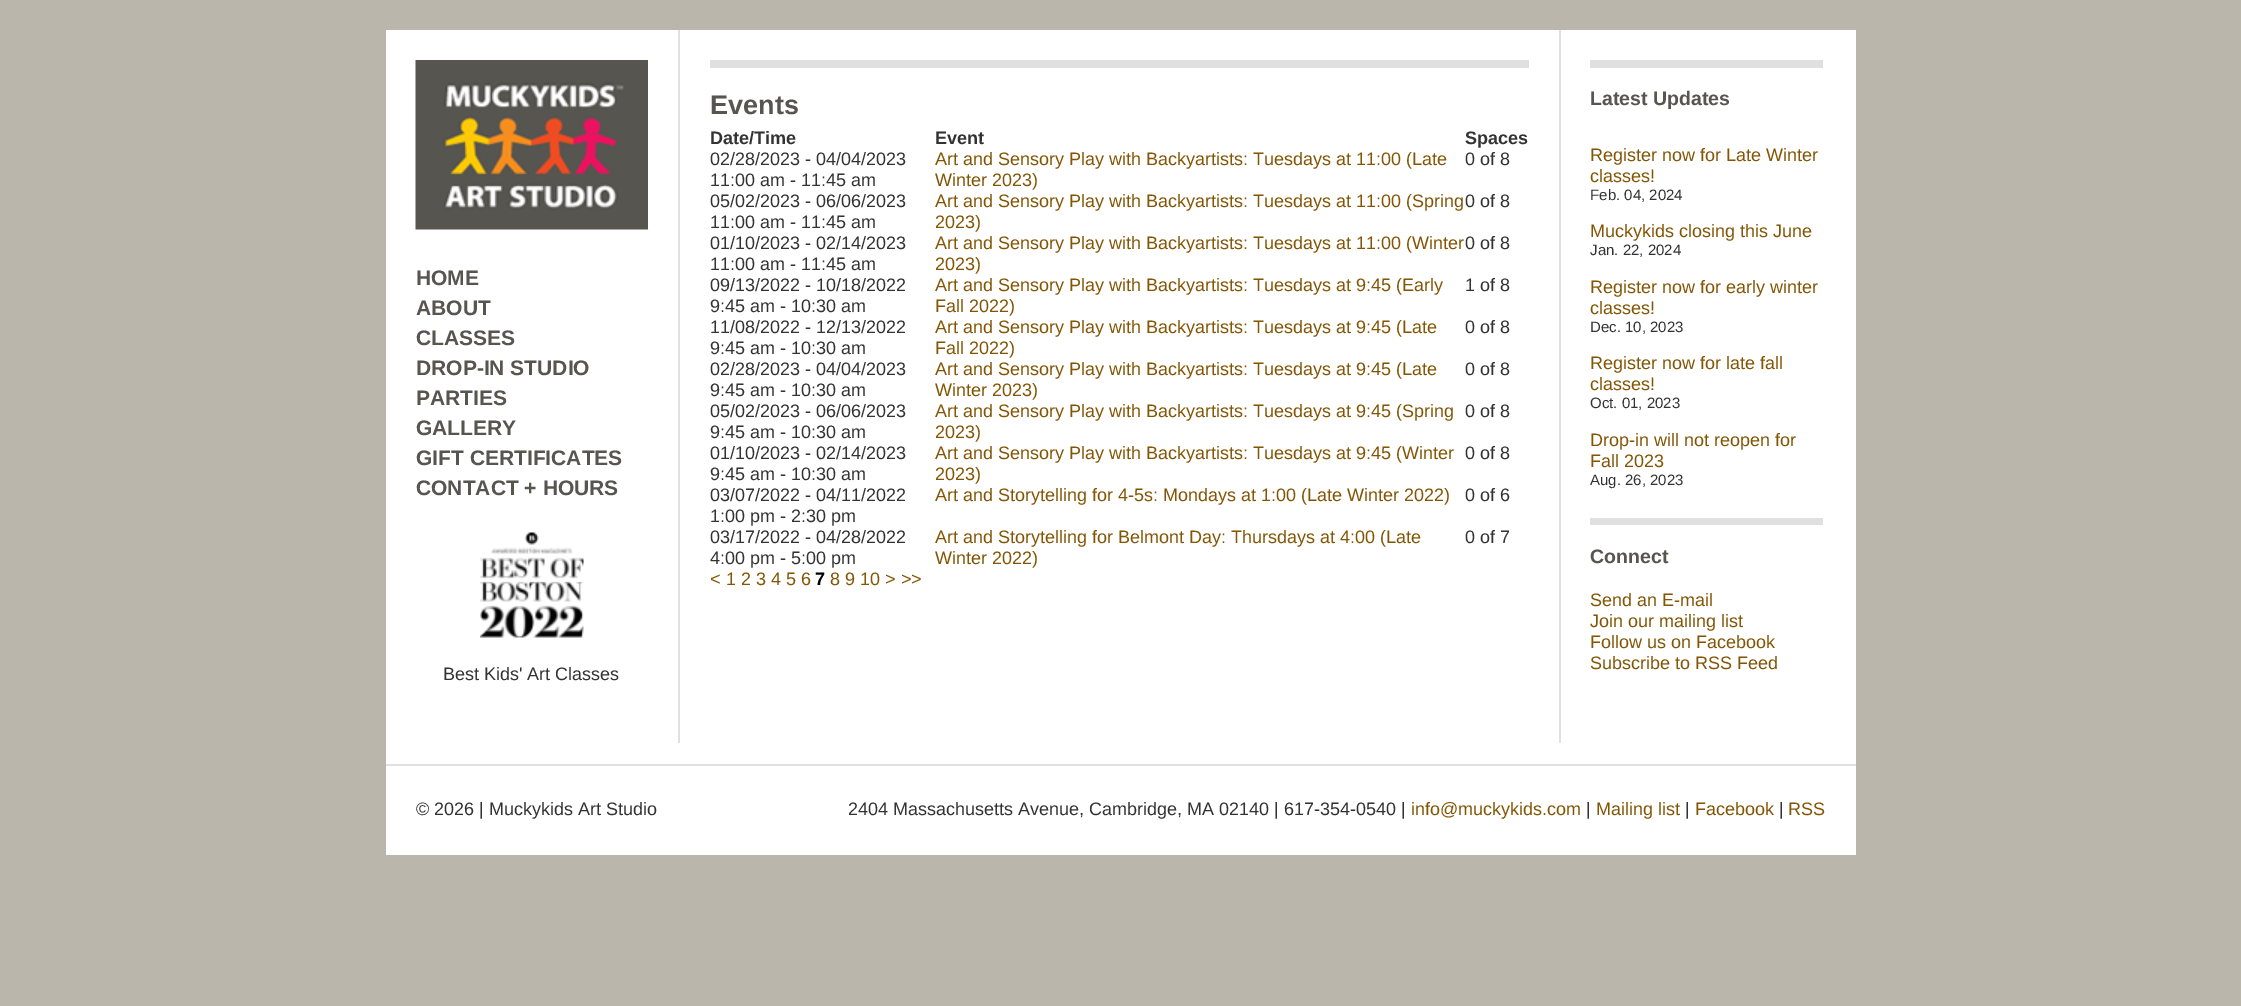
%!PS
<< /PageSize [2241 1006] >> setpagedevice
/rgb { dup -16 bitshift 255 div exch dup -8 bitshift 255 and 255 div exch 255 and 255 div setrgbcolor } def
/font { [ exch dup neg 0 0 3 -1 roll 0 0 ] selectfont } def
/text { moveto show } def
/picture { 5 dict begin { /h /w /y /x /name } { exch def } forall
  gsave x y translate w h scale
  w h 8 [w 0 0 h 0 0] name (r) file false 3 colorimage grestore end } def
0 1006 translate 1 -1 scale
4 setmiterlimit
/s1 { /LiberationSans-Bold 21 font 16#575550 rgb } def
/s2 { /LiberationSans-Regular 18 font 16#333333 rgb } def
/s3 { /LiberationSans-Bold 27 font 16#575550 rgb } def
/s4 { /LiberationSans-Bold 18 font 16#333333 rgb } def
/s5 { /LiberationSans-Regular 18 font 16#835504 rgb } def
/s6 { /LiberationSans-Bold 18 font 16#000000 rgb } def
/s7 { /LiberationSans-Bold 19.5 font 16#575550 rgb } def
/s8 { /LiberationSans-Regular 15 font 16#333333 rgb } def
16#BAB6AB rgb
0 0 2241 1006 rectfill
16#FFFFFF rgb
386 30 1470 825 rectfill
(pic1.raw) 415 60 233 170 picture
s1
(HOME) 416 285 text
(ABOUT) 416 315 text
(CLASSES) 416 345 text
(DROP-IN STUDIO) 416 375 text
(PARTIES) 416 405 text
(GALLERY) 416 435 text
(GIFT CERTIFICATES) 416 465 text
(CONTACT + HOURS) 416 495 text
(pic2.raw) 480 532 104 106 picture
s2
(Best Kids' Art Classes) 443 680 text
16#E0E0E0 rgb
1559 30 2 713 rectfill
678 30 2 713 rectfill
710 60 819 8 rectfill
s3
(Events) 710 114 text
s4
(Date/Time) 710 144 text
(Event) 935 144 text
(Spaces) 1465 144 text
s2
(02/28/2023 - 04/04/2023) 710 165 text
(11:00 am - 11:45 am) 710 186 text
s5
(Art and Sensory Play with Backyartists: Tuesdays at 11:00 \(Late) 935 165 text
(Winter 2023\)) 935 186 text
s2
(0 of 8) 1465 165 text
(05/02/2023 - 06/06/2023) 710 207 text
(11:00 am - 11:45 am) 710 228 text
s5
(Art and Sensory Play with Backyartists: Tuesdays at 11:00 \(Spring) 935 207 text
(2023\)) 935 228 text
s2
(0 of 8) 1465 207 text
(01/10/2023 - 02/14/2023) 710 249 text
(11:00 am - 11:45 am) 710 270 text
s5
(Art and Sensory Play with Backyartists: Tuesdays at 11:00 \(Winter) 935 249 text
(2023\)) 935 270 text
s2
(0 of 8) 1465 249 text
(09/13/2022 - 10/18/2022) 710 291 text
(9:45 am - 10:30 am) 710 312 text
s5
(Art and Sensory Play with Backyartists: Tuesdays at 9:45 \(Early) 935 291 text
(Fall 2022\)) 935 312 text
s2
(1 of 8) 1465 291 text
(11/08/2022 - 12/13/2022) 710 333 text
(9:45 am - 10:30 am) 710 354 text
s5
(Art and Sensory Play with Backyartists: Tuesdays at 9:45 \(Late) 935 333 text
(Fall 2022\)) 935 354 text
s2
(0 of 8) 1465 333 text
(02/28/2023 - 04/04/2023) 710 375 text
(9:45 am - 10:30 am) 710 396 text
s5
(Art and Sensory Play with Backyartists: Tuesdays at 9:45 \(Late) 935 375 text
(Winter 2023\)) 935 396 text
s2
(0 of 8) 1465 375 text
(05/02/2023 - 06/06/2023) 710 417 text
(9:45 am - 10:30 am) 710 438 text
s5
(Art and Sensory Play with Backyartists: Tuesdays at 9:45 \(Spring) 935 417 text
(2023\)) 935 438 text
s2
(0 of 8) 1465 417 text
(01/10/2023 - 02/14/2023) 710 459 text
(9:45 am - 10:30 am) 710 480 text
s5
(Art and Sensory Play with Backyartists: Tuesdays at 9:45 \(Winter) 935 459 text
(2023\)) 935 480 text
s2
(0 of 8) 1465 459 text
(03/07/2022 - 04/11/2022) 710 501 text
(1:00 pm - 2:30 pm) 710 522 text
s5
(Art and Storytelling for 4-5s: Mondays at 1:00 \(Late Winter 2022\)) 935 501 text
s2
(0 of 6) 1465 501 text
(03/17/2022 - 04/28/2022) 710 543 text
(4:00 pm - 5:00 pm) 710 564 text
s5
(Art and Storytelling for Belmont Day: Thursdays at 4:00 \(Late) 935 543 text
(Winter 2022\)) 935 564 text
s2
(0 of 7) 1465 543 text
s5
(< 1 2 3 4 5 6) 710 585 text
s6
(7) 815 585 text
s5
(8 9 10 > >>) 830 585 text
16#E0E0E0 rgb
1590 60 233 8 rectfill
s7
(Latest Updates) 1590 105 text
s5
(Register now for Late Winter) 1590 161 text
(classes!) 1590 182 text
s8
(Feb. 04, 2024) 1590 200 text
s5
(Muckykids closing this June) 1590 237 text
s8
(Jan. 22, 2024) 1590 255 text
s5
(Register now for early winter) 1590 293 text
(classes!) 1590 314 text
s8
(Dec. 10, 2023) 1590 332 text
s5
(Register now for late fall) 1590 369 text
(classes!) 1590 390 text
s8
(Oct. 01, 2023) 1590 408 text
s5
(Drop-in will not reopen for) 1590 446 text
(Fall 2023) 1590 467 text
s8
(Aug. 26, 2023) 1590 485 text
16#E0E0E0 rgb
1590 518 233 7 rectfill
s7
(Connect) 1590 563 text
s5
(Send an E-mail) 1590 606 text
(Join our mailing list) 1590 627 text
(Follow us on Facebook) 1590 648 text
(Subscribe to RSS Feed) 1590 669 text
16#E0E0E0 rgb
386 764 1470 2 rectfill
s2
(© 2026 | Muckykids Art Studio) 416 815 text
(2404 Massachusetts Avenue, Cambridge, MA 02140 | 617-354-0540 |) 848 815 text
s5
(info@muckykids.com) 1411 815 text
s2
(|) 1586 815 text
s5
(Mailing list) 1596 815 text
s2
(|) 1685 815 text
s5
(Facebook) 1695 815 text
s2
(|) 1779 815 text
s5
(RSS) 1788 815 text
showpage
